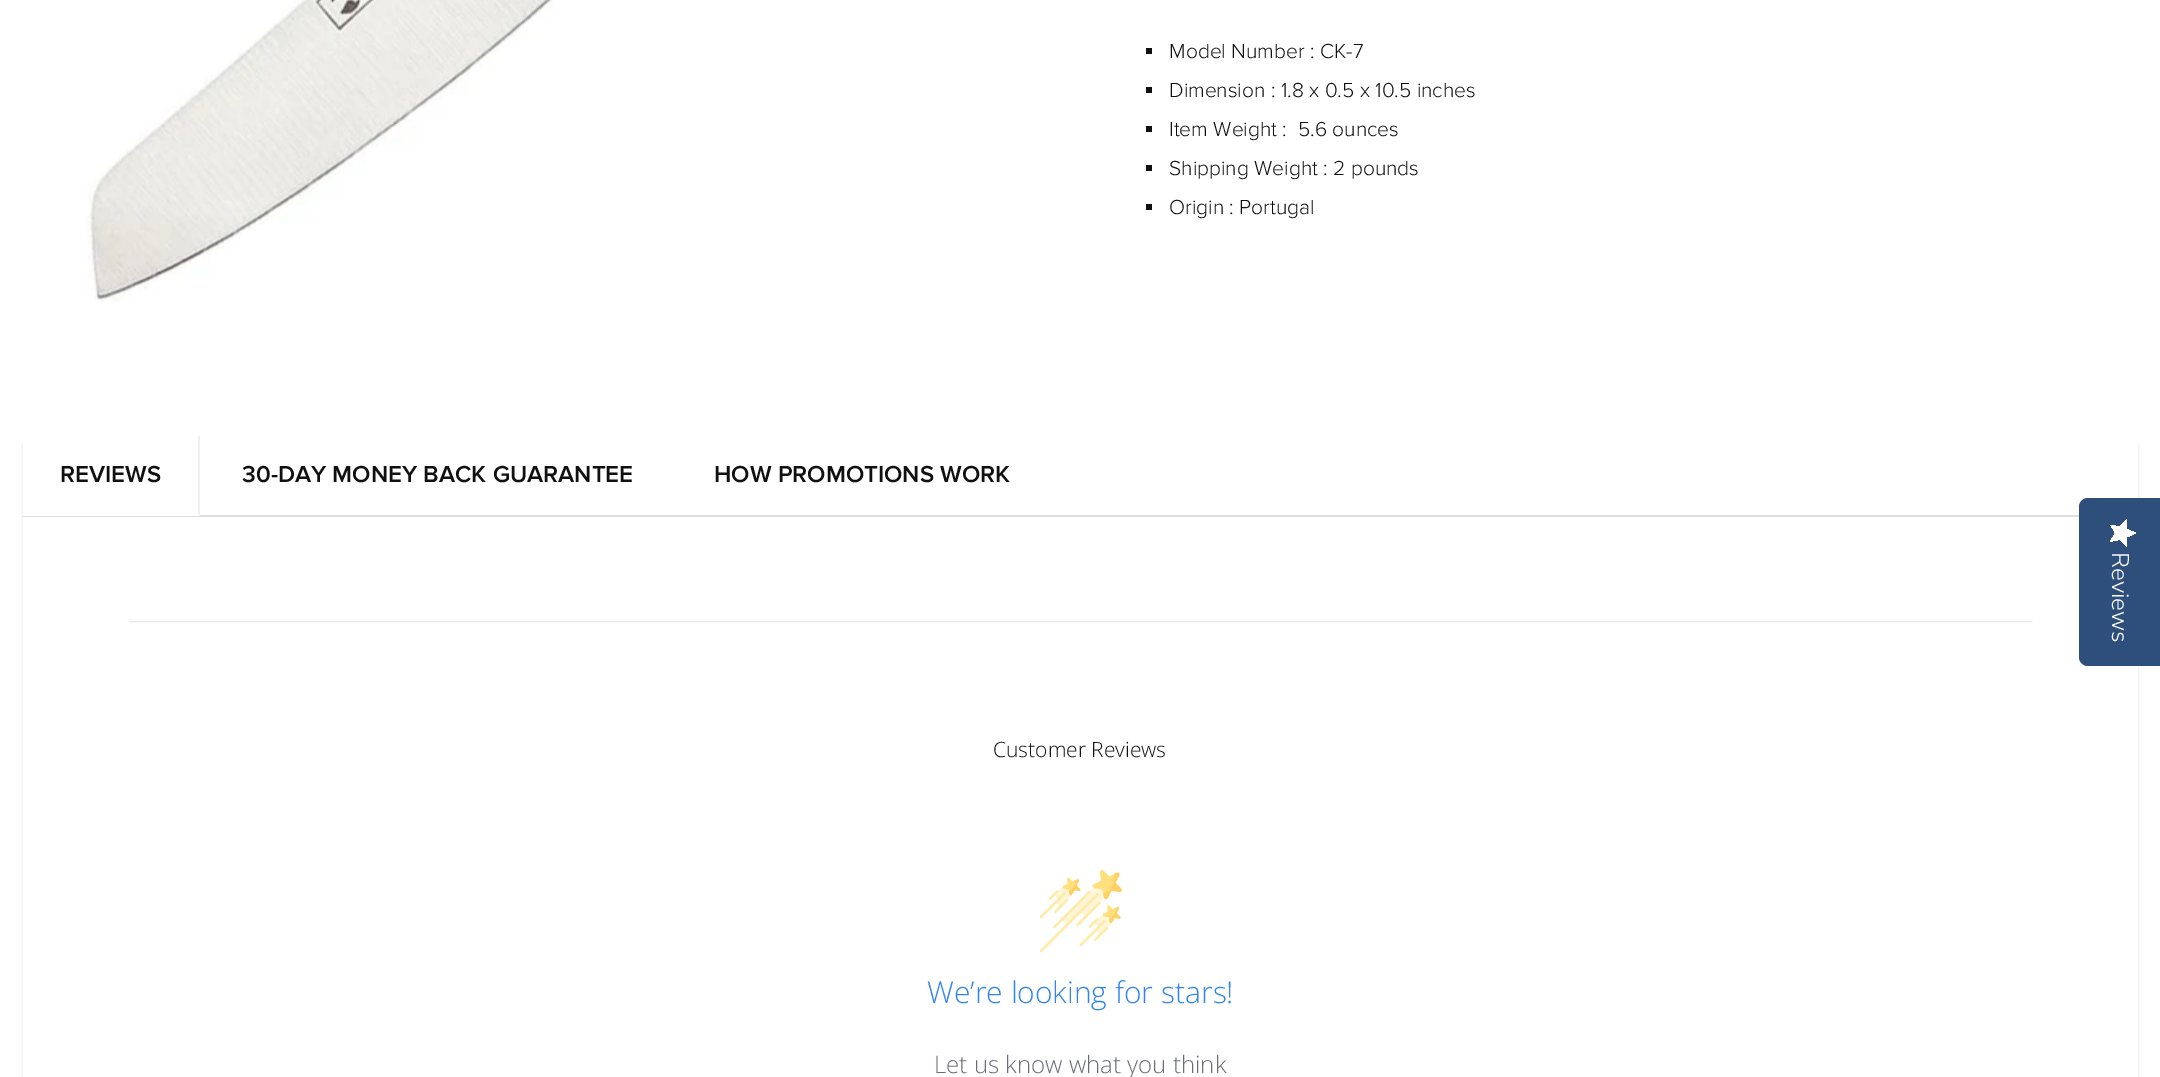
%!PS
<< /PageSize [2160 1077] /PageUsesTransparency true >> setpagedevice
/rgb { dup -16 bitshift 255 div exch dup -8 bitshift 255 and 255 div exch 255 and 255 div setrgbcolor } def
/font { [ exch dup neg 0 0 3 -1 roll 0 0 ] selectfont } def
/text { moveto show } def
/alpha { dup .setfillconstantalpha .setstrokeconstantalpha } def
/roundrect { 5 dict begin { /r /h /w /y /x } { exch def } forall
  x r add y moveto x w add y 2 copy h add r arct x w add y h add x 1 index r arct
  x y h add x y r arct x y 2 copy exch w add exch r arct closepath end } def
/shadow { 12 dict begin { /a /b /q /h /w /y /x } { exch def } forall gsave /was 0 def
  9 -2 -9 { dup b mul 4 div /e exch def 1 sub .425 mul 2.718 exch exp 1 add a .99 .min exch div /now exch def
    1 1 now sub 1 was sub div sub alpha /was now def
    w h .min e 2 mul add 0 gt { x e sub y e sub w e 2 mul add h e 2 mul add
      q e add b .6 mul add w h .min 2 div e add .min 0 .max roundrect fill } if } for grestore end } def
/picture { 5 dict begin { /h /w /y /x /name } { exch def } forall
  gsave x y translate w h scale
  w h 8 [w 0 0 h 0 0] name (r) file false 3 colorimage grestore end } def
0 .pushpdf14devicefilter
0 1077 translate 1 -1 scale
4 setmiterlimit
/s1 { /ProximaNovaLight-Light 21 font 16#101010 rgb } def
/s2 { /ProximaNovaLight-SemiBold 24 font 16#101010 rgb } def
/s3 { /OpenSans-Light 21 font 16#101010 rgb } def
/s4 { /OpenSans-Light 30 font 16#2F84ED rgb } def
/s5 { /OpenSans-Light 24 font 16#6B6D76 rgb } def
16#FFFFFF rgb
0 0 2160 1077 rectfill
(pic1.raw) 85 0 468 302 picture
16#101010 rgb
1146 48 6 6 rectfill
s1
(Model Number : CK-7) 1169 58 text
1146 87 6 6 rectfill
(Dimension : 1.8 x 0.5 x 10.5 inches) 1169 97 text
1146 126 6 6 rectfill
(Item Weight :  5.6 ounces) 1169 136 text
1146 165 6 6 rectfill
(Shipping Weight : 2 pounds) 1169 175 text
1146 204 6 6 rectfill
(Origin : Portugal) 1169 214 text
16#0B191C rgb
23 438 2115 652 8 1.5 0.1 shadow
16#FFFFFF rgb
23 435 2115 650 8 roundrect fill
16#DDDDDD rgb
23 515 2056 2 rectfill
16#FFFFFF rgb
23 515 177 1 rectfill
16#EFEFEF rgb
200 436 moveto 200 516 lineto 198 514 lineto 198 436 lineto closepath fill
s2
(REVIEWS) 60 482 text
(30-DAY MONEY BACK GUARANTEE) 242 482 text
(HOW PROMOTIONS WORK) 714 482 text
(pic2.raw) 129 621 1904 2 picture
s3
(Customer Reviews) 993 757 text
(pic3.raw) 1040 870 82 83 picture
s4
(We’re looking for stars!) 927 1003 text
s5
(Let us know what you think) 934 1073 text
16#2E4F7C rgb
2160 498 moveto 2160 666 lineto 2088 666 lineto 2083 666 2079 662 2079 657 curveto 2079 507 lineto 2079 502 2083 498 2088 498 curveto closepath fill
gsave 2115.5 533 moveto 2110.5 541.5 lineto 2120 539.5 lineto 2126.5 546.5 lineto 2127 537 lineto 2136 533 lineto 2127 529.5 lineto 2126.5 519.5 lineto 2120 527 lineto 2110.5 525 lineto closepath clip newpath
<< /ShadingType 2 /ColorSpace /DeviceRGB /Coords [2136 520 2136 547] /Extend [true true] /Function << /FunctionType 2 /Domain [0 1] /C0 [1 1 1] /C1 [1 1 1] /N 1 >> >> shfill grestore
/NunitoSans-Light 24 font
16#FFFFFF rgb
gsave 2112 552 translate 90 rotate 0 0 moveto (Reviews) show grestore
.poppdf14devicefilter showpage
